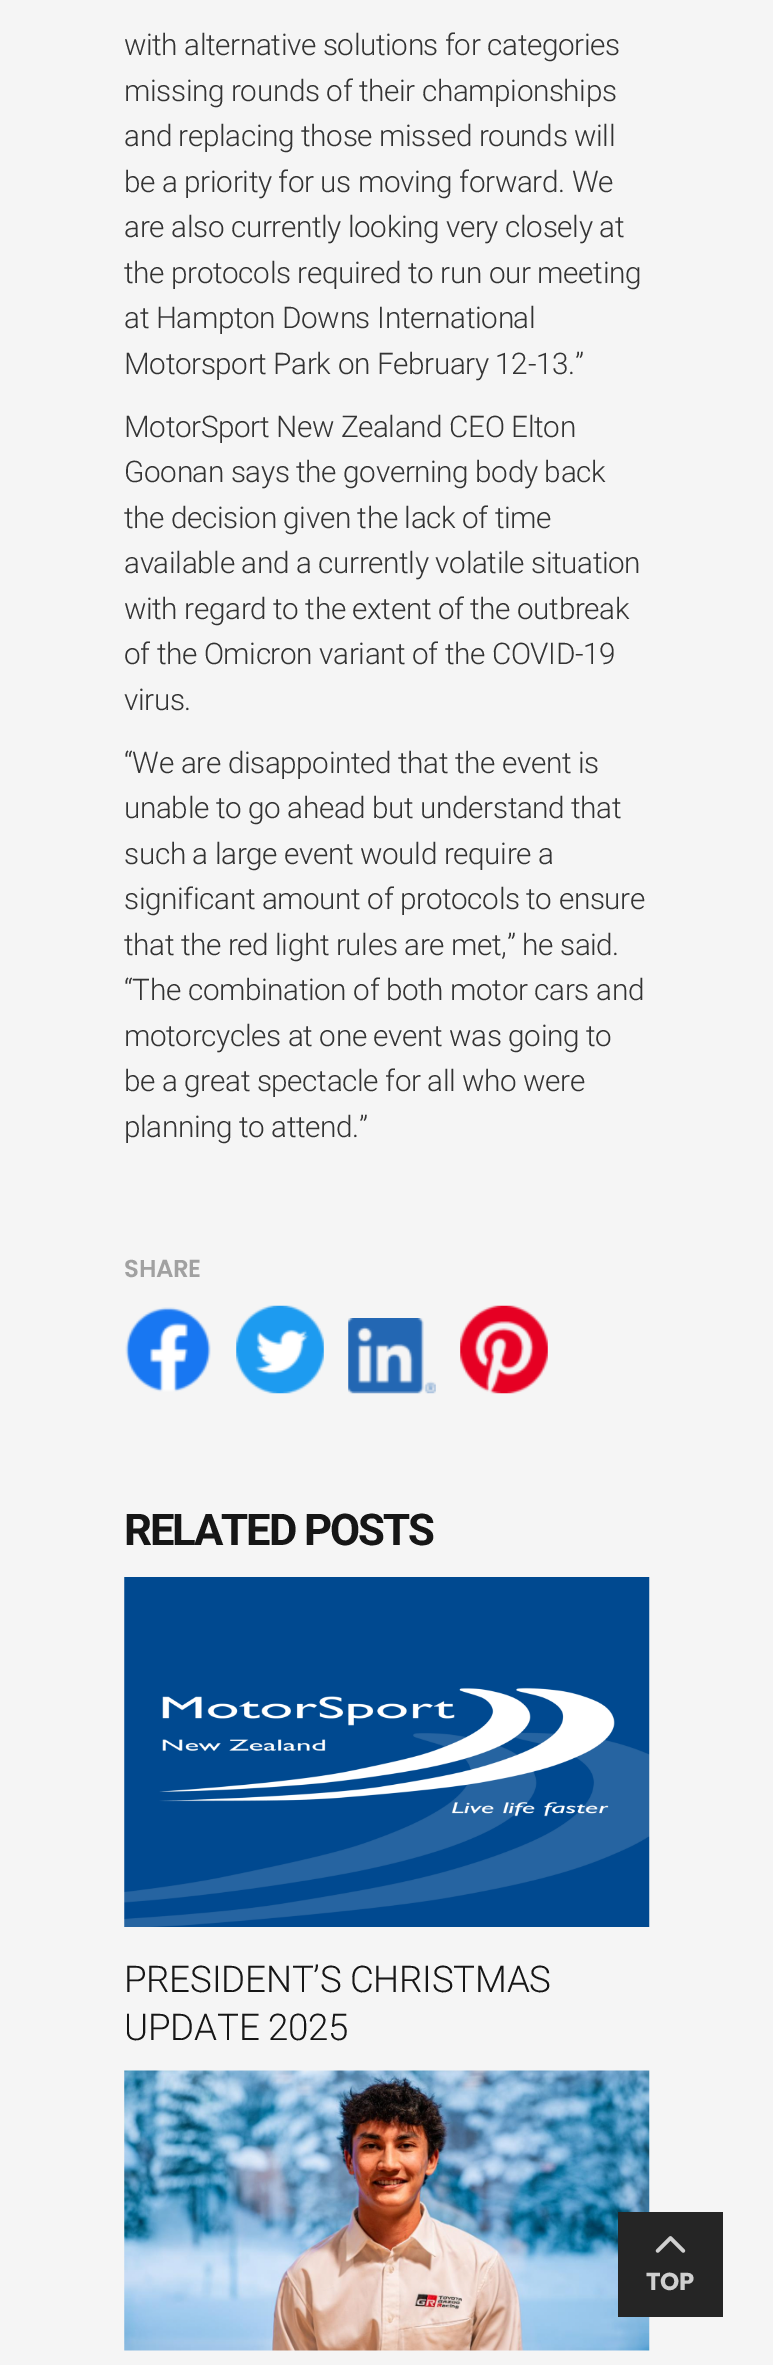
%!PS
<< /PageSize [773 2365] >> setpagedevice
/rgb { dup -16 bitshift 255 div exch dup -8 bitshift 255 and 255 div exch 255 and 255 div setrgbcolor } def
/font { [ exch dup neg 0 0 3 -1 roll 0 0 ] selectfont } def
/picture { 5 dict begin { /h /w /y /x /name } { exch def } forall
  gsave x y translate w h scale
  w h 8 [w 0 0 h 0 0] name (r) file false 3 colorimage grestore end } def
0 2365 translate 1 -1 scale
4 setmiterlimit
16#F5F5F5 rgb
0 0 773 2365 rectfill
/Roboto-Light 29.75 font
16#333333 rgb
124 55 moveto -0.4 0 (with alternative solutions for categories) ashow
124 101 moveto -0.4 0 (missing rounds of their championships) ashow
124 146 moveto -0.4 0 (and replacing those missed rounds will) ashow
124 192 moveto -0.4 0 (be a priority for us moving forward. We) ashow
124 237 moveto -0.4 0 (are also currently looking very closely at) ashow
124 283 moveto -0.4 0 (the protocols required to run our meeting) ashow
124 328 moveto -0.4 0 (at Hampton Downs International) ashow
124 374 moveto -0.4 0 (Motorsport Park on February 12-13.”) ashow
124 437 moveto -0.4 0 (MotorSport New Zealand CEO Elton) ashow
124 482 moveto -0.4 0 (Goonan says the governing body back) ashow
124 528 moveto -0.4 0 (the decision given the lack of time) ashow
124 573 moveto -0.4 0 (available and a currently volatile situation) ashow
124 619 moveto -0.4 0 (with regard to the extent of the outbreak) ashow
124 664 moveto -0.4 0 (of the Omicron variant of the COVID-19) ashow
124 710 moveto -0.4 0 (virus.) ashow
124 773 moveto -0.4 0 (“We are disappointed that the event is) ashow
124 818 moveto -0.4 0 (unable to go ahead but understand that) ashow
124 864 moveto -0.4 0 (such a large event would require a) ashow
124 909 moveto -0.4 0 (significant amount of protocols to ensure) ashow
124 955 moveto -0.4 0 (that the red light rules are met,” he said.) ashow
124 1000 moveto -0.4 0 (“The combination of both motor cars and) ashow
124 1046 moveto -0.4 0 (motorcycles at one event was going to) ashow
124 1091 moveto -0.4 0 (be a great spectacle for all who were) ashow
124 1137 moveto -0.4 0 (planning to attend.”) ashow
/Poppins-SemiBold 24.5 font
16#A1A1A1 rgb
124 1277 moveto -0.4 0 (SHARE) ashow
(pic1.raw) 125 1307 86 85 picture
(pic2.raw) 236 1305 88 89 picture
(pic3.raw) 348 1318 88 76 picture
(pic4.raw) 460 1305 88 89 picture
/Roboto-Bold 43.75 font
16#161616 rgb
124 1545 moveto -2.1 0 (RELATED POSTS) ashow
(pic5.raw) 124 1577 526 350 picture
/Roboto-Light 36.75 font
124 1992 moveto -0.25 0 (PRESIDENT’S CHRISTMAS) ashow
124 2040 moveto -0.25 0 (UPDATE 2025) ashow
(pic6.raw) 124 2070 526 281 picture
16#252525 rgb
618 2212 105 105 rectfill
(pic7.raw) 655 2236 31 17 picture
/Poppins-Bold 24.5 font
16#D0D0D0 rgb
646 2290 moveto -0.4 0 (TOP) ashow
showpage
